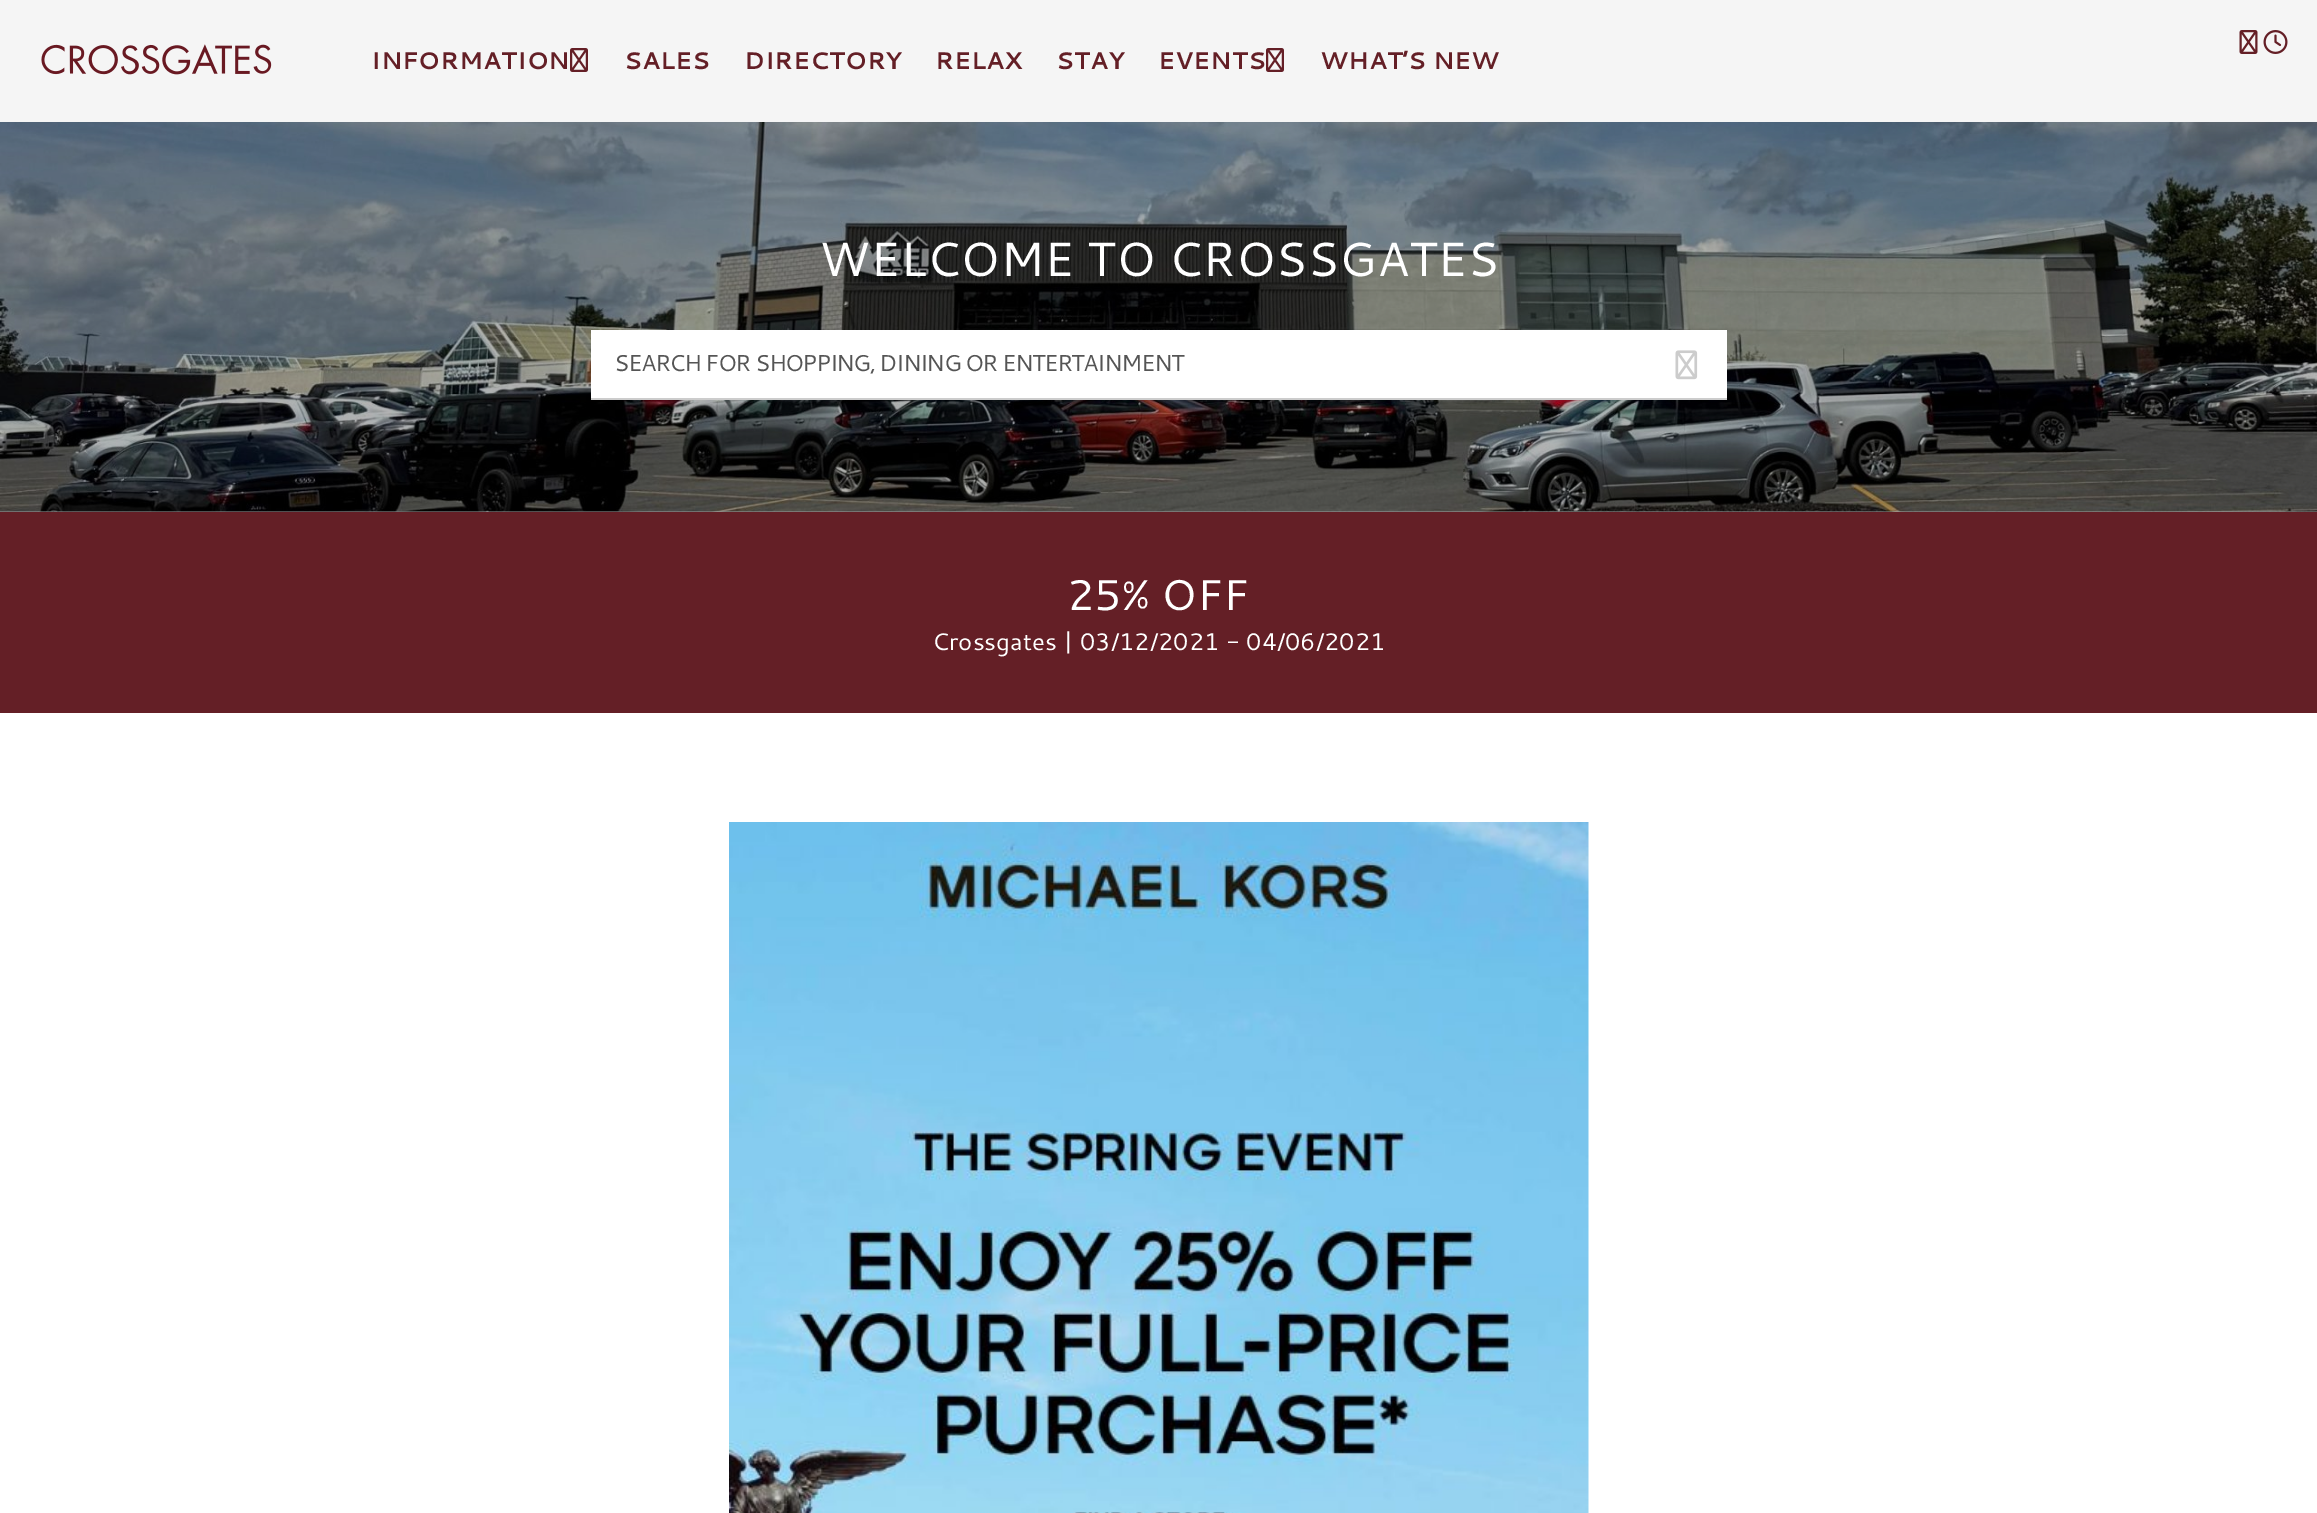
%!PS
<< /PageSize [2317 1513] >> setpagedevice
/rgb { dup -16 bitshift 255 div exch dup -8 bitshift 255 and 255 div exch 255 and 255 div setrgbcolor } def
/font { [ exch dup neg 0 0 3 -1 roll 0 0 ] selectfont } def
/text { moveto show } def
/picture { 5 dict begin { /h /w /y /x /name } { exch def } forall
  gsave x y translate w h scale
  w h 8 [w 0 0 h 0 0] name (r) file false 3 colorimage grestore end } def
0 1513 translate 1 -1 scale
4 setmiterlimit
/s1 { /Cantarell-Bold 24 font 16#641F26 rgb } def
/s2 { /Cantarell-Regular 48 font 16#FFFFFF rgb } def
/s3 { /Cantarell-Regular 43 font 16#FFFFFF rgb } def
/s4 { /Cantarell-Regular 24 font 16#FFFFFF rgb } def
16#9E9E9E rgb
0 0 2317 1513 rectfill
16#F5F5F5 rgb
0 0 2317 122 rectfill
(pic1.raw) 41 44 231 31 picture
s1
(INFORMATION) 371 69 text
(pic2.raw) 570 48 18 24 picture
(SALES) 624 69 text
(DIRECTORY) 744 69 text
(RELAX) 935 69 text
(STAY) 1056 69 text
(EVENTS) 1158 69 text
(pic2.raw) 1266 48 18 24 picture
(WHAT’S NEW) 1320 69 text
(pic3.raw) 2239 30 19 24 picture
(pic4.raw) 2263 30 25 24 picture
(pic5.raw) 0 122 2317 390 picture
s2
(WELCOME TO CROSSGATES) 819 276 text
591 330 1136 68 rectfill
16#CCCCCC rgb
591 398 1136 2 rectfill
/Cantarell-Regular 23 font
16#555555 rgb
614 371 moveto -1.5 0 (SEARCH FOR SHOPPING, DINING OR ENTERTAINMENT) ashow
(pic6.raw) 1675 350 23 30 picture
16#641F26 rgb
0 512 2317 201 rectfill
s3
(25% OFF) 1067 610 text
s4
(Crossgates | 03/12/2021 - 04/06/2021) 932 650 text
0 713 2317 800 rectfill
(pic7.raw) 729 822 860 691 picture
showpage
